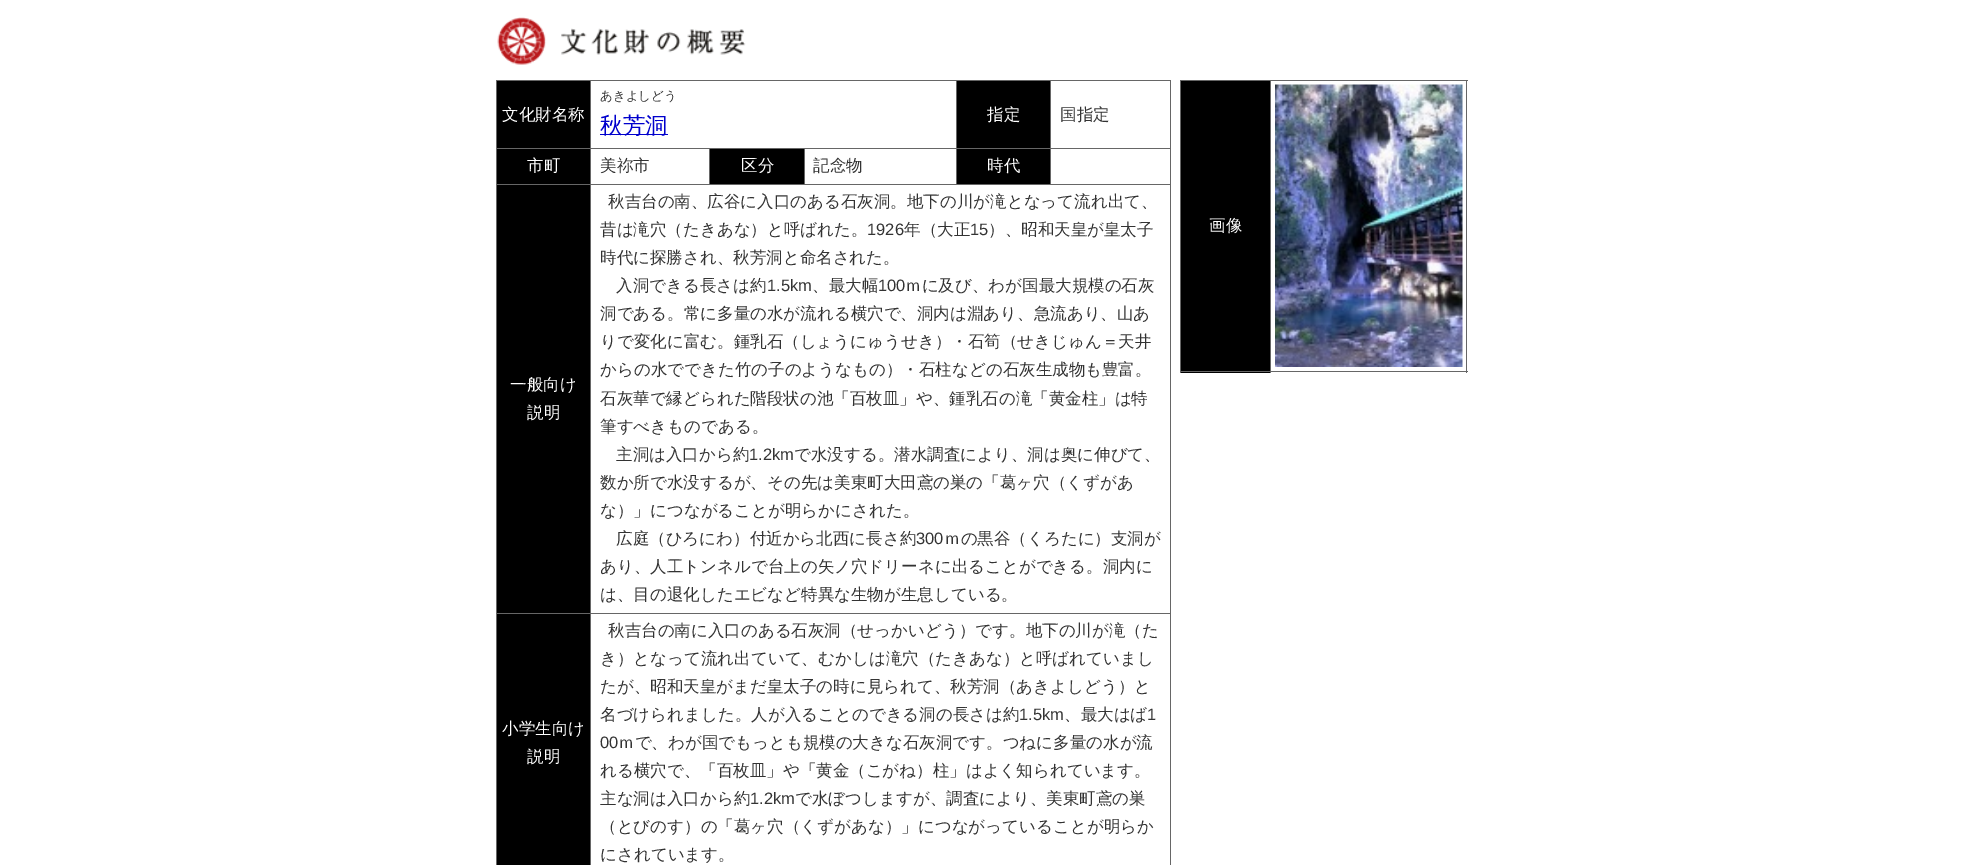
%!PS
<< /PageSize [1966 865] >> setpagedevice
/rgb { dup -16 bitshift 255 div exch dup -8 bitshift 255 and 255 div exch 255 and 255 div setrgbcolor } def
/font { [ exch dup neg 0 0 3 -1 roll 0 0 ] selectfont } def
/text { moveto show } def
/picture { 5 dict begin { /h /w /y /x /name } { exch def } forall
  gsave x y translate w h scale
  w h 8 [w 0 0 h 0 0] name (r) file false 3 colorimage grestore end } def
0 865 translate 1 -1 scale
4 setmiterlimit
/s1 { /WenQuanYiZenHei-Medium 16.5 font 16#FFFFFF rgb } def
/s2 { /WenQuanYiZenHei-Medium 12.5 font 16#333333 rgb } def
/s3 { /WenQuanYiZenHei-Medium 22.5 font 16#0000CD rgb } def
/s4 { /WenQuanYiZenHei-Medium 16.5 font 16#333333 rgb } def
/s5 { /LiberationSans-Regular 16.5 font 16#333333 rgb } def
16#FFFFFF rgb
0 0 1966 865 rectfill
(pic1.raw) 497 17 249 48 picture
16#000000 rgb
497 81 93 67 rectfill
16#666666 rgb
1050 80 121 1 rectfill
1050 148 121 1 rectfill
590 184 581 1 rectfill
1050 148 1 37 rectfill
956 148 95 1 rectfill
1050 80 1 69 rectfill
956 80 95 1 rectfill
956 148 1 37 rectfill
804 148 154 1 rectfill
956 80 1 69 rectfill
590 80 368 1 rectfill
804 148 1 37 rectfill
709 148 96 1 rectfill
709 148 1 37 rectfill
590 148 120 1 rectfill
590 613 581 1 rectfill
590 613 1 252 rectfill
496 613 95 1 rectfill
590 184 1 430 rectfill
496 184 95 1 rectfill
590 148 1 37 rectfill
496 148 95 1 rectfill
590 80 1 69 rectfill
496 80 95 1 rectfill
496 613 1 252 rectfill
496 184 1 430 rectfill
496 148 1 37 rectfill
496 80 1 69 rectfill
s1
(文化財名称) 502 120 text
s2
(あきよしどう) 600 100 text
16#0000CD rgb
600 134 68 1 rectfill
s3
(秋芳洞) 600 133 text
16#000000 rgb
957 81 93 67 rectfill
s1
(指定) 987 120 text
16#666666 rgb
1170 613 1 252 rectfill
1170 184 1 430 rectfill
1170 148 1 37 rectfill
1170 80 1 69 rectfill
s4
(国指定) 1060 120 text
16#000000 rgb
497 149 93 35 rectfill
s1
(市町) 527 171 text
s4
(美祢市) 600 171 text
16#000000 rgb
710 149 94 35 rectfill
s1
(区分) 741 171 text
s4
(記念物) 813 171 text
16#000000 rgb
957 149 93 35 rectfill
s1
(時代) 987 171 text
16#000000 rgb
497 185 93 428 rectfill
s1
(一般向け) 510 390 text
(説明) 527 418 text
s4
(秋吉台の南、広谷に入口のある石灰洞。地下の川が滝となって流れ出て、) 608 207 text
(昔は滝穴（たきあな）と呼ばれた。) 600 235 text
s5
(1926) 867 235 text
s4
(年（大正) 904 235 text
s5
(15) 970 235 text
s4
(）、昭和天皇が皇太子) 988 235 text
(時代に探勝され、秋芳洞と命名された。) 600 263 text
(入洞できる長さは約) 616 291 text
s5
(1.5km) 767 291 text
s4
(、最大幅) 812 291 text
s5
(100) 878 291 text
s4
(ｍに及び、わが国最大規模の石灰) 905 291 text
(洞である。常に多量の水が流れる横穴で、洞内は淵あり、急流あり、山あ) 600 319 text
(りで変化に富む。鍾乳石（しょうにゅうせき）・石筍（せきじゅん＝天井) 600 347 text
(からの水でできた竹の子のようなもの）・石柱などの石灰生成物も豊富。) 600 375 text
(石灰華で縁どられた階段状の池「百枚皿」や、鍾乳石の滝「黄金柱」は特) 600 404 text
(筆すべきものである。) 600 432 text
(主洞は入口から約) 616 460 text
s5
(1.2km) 749 460 text
s4
(で水没する。潜水調査により、洞は奥に伸びて、) 794 460 text
(数か所で水没するが、その先は美東町大田鳶の巣の「葛ヶ穴（くずがあ) 600 488 text
(な）」につながることが明らかにされた。) 600 516 text
(広庭（ひろにわ）付近から北西に長さ約) 616 544 text
s5
(300) 916 544 text
s4
(ｍの黒谷（くろたに）支洞が) 944 544 text
(あり、人工トンネルで台上の矢ノ穴ドリーネに出ることができる。洞内に) 600 572 text
(は、目の退化したエビなど特異な生物が生息している。) 600 600 text
16#000000 rgb
497 614 93 251 rectfill
s1
(小学生向け) 502 734 text
(説明) 527 762 text
s4
(秋吉台の南に入口のある石灰洞（せっかいどう）です。地下の川が滝（た) 608 636 text
(き）となって流れ出ていて、むかしは滝穴（たきあな）と呼ばれていまし) 600 664 text
(たが、昭和天皇がまだ皇太子の時に見られて、秋芳洞（あきよしどう）と) 600 692 text
(名づけられました。人が入ることのできる洞の長さは約) 600 720 text
s5
(1.5km) 1019 720 text
s4
(、最大はば) 1064 720 text
s5
(1) 1147 720 text
(00) 600 748 text
s4
(ｍで、わが国でもっとも規模の大きな石灰洞です。つねに多量の水が流) 618 748 text
(れる横穴で、「百枚皿」や「黄金（こがね）柱」はよく知られています。) 600 776 text
(主な洞は入口から約) 600 804 text
s5
(1.2km) 750 804 text
s4
(で水ぼつしますが、調査により、美東町鳶の巣) 795 804 text
(（とびのす）の「葛ヶ穴（くずがあな）」につながっていることが明らか) 600 832 text
(にされています。) 600 860 text
16#000000 rgb
1181 81 89 292 rectfill
16#666666 rgb
1270 80 198 1 rectfill
1466 80 1 293 rectfill
1270 371 198 1 rectfill
1270 80 1 293 rectfill
1180 80 91 1 rectfill
1180 371 91 1 rectfill
1180 80 1 293 rectfill
s1
(画像) 1209 231 text
(pic2.raw) 1275 84 188 283 picture
showpage
